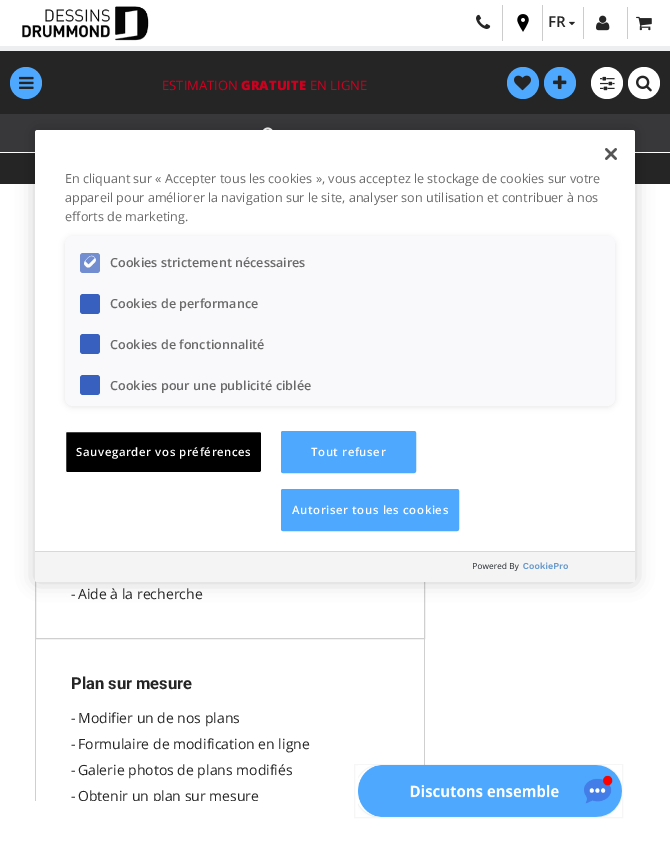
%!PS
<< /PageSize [670 865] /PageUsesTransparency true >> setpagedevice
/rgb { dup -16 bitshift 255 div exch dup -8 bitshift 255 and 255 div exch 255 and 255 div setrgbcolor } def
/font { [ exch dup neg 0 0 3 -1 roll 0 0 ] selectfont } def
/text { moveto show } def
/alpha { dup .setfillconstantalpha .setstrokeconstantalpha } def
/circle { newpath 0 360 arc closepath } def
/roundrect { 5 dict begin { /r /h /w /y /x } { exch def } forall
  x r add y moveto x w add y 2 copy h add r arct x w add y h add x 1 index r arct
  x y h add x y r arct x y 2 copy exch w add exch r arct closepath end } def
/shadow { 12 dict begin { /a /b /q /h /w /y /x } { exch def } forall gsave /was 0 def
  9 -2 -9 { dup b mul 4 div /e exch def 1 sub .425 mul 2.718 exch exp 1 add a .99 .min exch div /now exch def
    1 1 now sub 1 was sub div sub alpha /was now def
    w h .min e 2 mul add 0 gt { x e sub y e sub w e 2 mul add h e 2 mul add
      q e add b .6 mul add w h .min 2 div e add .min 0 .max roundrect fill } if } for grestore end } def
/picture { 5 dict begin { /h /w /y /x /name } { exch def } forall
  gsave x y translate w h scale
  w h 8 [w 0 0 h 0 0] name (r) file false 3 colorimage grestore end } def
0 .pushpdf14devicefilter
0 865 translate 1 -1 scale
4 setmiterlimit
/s1 { /OpenSans-SemiBold 15 font 16#252525 rgb } def
/s2 { /OpenSans-Regular 13 font 16#CF001F rgb } def
/s3 { /OpenSans-ExtraBold 13 font 16#CF001F rgb } def
/s4 { /OpenSans-Regular 14 font 16#252525 rgb } def
/s5 { /Roboto-Bold 16.5 font 16#252525 rgb } def
/s6 { /OpenSans-Regular 12.6 font 16#696969 rgb } def
/s7 { /OpenSans-SemiBold 12.6 font 16#696969 rgb } def
16#252525 rgb
0 0 670 865 rectfill
16#FFFFFF rgb
0 0 670 46 rectfill
16#ECEEEF rgb
0 46 670 5 rectfill
(pic1.raw) 22 6 127 35 picture
(pic2.raw) 476 14 15 15 picture
16#CCCCCC rgb
502 5 1 36 rectfill
(pic3.raw) 517 14 12 18 picture
542 5 1 36 rectfill
s1
(FR) 548 27 text
(pic4.raw) 569 21 6 5 picture
16#CCCCCC rgb
627 7 1 32 rectfill
583 7 1 32 rectfill
(pic5.raw) 596 15 14 16 picture
(pic6.raw) 636 16 16 15 picture
16#4DA8FE rgb
26 83 16 circle fill
(pic7.raw) 19 76 15 13 picture
s2
(ESTIMATION) 162 90 text
s3
(GRATUITE) 241 90 text
s2
(EN LIGNE) 310 90 text
16#4DA8FE rgb
523 83 16 circle fill
(pic8.raw) 514 75 17 16 picture
560 83 16 circle fill
(pic9.raw) 553 75 14 14 picture
16#FFFFFF rgb
607 83 16 circle fill
(pic10.raw) 600 76 15 15 picture
644 83 16 circle fill
(pic11.raw) 636 75 16 17 picture
16#38383B rgb
0 114 670 38 rectfill
16#FFFFFF rgb
0 152 670 1 rectfill
(pic12.raw) 263 127 10 3 picture
0 184 670 617 rectfill
16#CFCFCF rgb
35.5 332.5 389 306 rectstroke
s4
(-) 71 599 text
(Aide à la recherche) 78 599 text
16#CFCFCF rgb
424 639 1 126 rectfill
35 639 1 162 rectfill
s5
(Plan sur mesure) 71 689 text
s4
(-) 71 723 text
(Modifier un de nos plans) 78 723 text
(-) 71 749 text
(Formulaire de modification en ligne) 78 749 text
(-) 71 775 text
(Galerie photos de plans modifiés) 78 775 text
(-) 71 801 text
(Obtenir un plan sur mesure) 78 801 text
16#FFFFFF rgb
0 801 670 64 rectfill
16#000000 rgb
35 130 600 452 2.5 9 0.2 shadow
16#FFFFFF rgb
35 130 600 452 2.5 roundrect fill
(pic13.raw) 605 148 12 12 picture
s6
(En cliquant sur « Accepter tous les cookies », vous acceptez le stockage de cookies sur votre) 65 183 text
(appareil pour améliorer la navigation sur le site, analyser son utilisation et contribuer à nos) 65 202 text
(efforts de marketing.) 65 221 text
16#000000 rgb
65 237 550 170 8 3 0.1 shadow
16#F9F9FC rgb
65 236 550 170 8 roundrect fill
16#728ED1 rgb
83 253 moveto 97 253 lineto 98.5 253 100 254.5 100 256 curveto 100 270 lineto 100 271.5 98.5 273 97 273 curveto 83 273 lineto 81.5 273 80 271.5 80 270 curveto 80 256 lineto 80 254.5 81.5 253 83 253 curveto closepath fill
16#FDFDFE rgb
85 261 moveto 88 258 90 254 94 257 curveto 95 258 lineto 88.5 264.5 lineto closepath 95 258 moveto 94 256.5 92.5 255.5 91 256 curveto 89.5 256 85 260.5 84.5 262 curveto 84 263 84 264 84.5 265 curveto 86.5 267 lineto 89.5 268.5 91 266 93 264 curveto 95 262 97 261 95 258 curveto closepath eofill
s7
(Cookies strictement nécessaires) 110 267 text
16#3860BE rgb
83 294 moveto 97 294 lineto 98.5 294 100 295.5 100 297 curveto 100 311 lineto 100 312.5 98.5 314 97 314 curveto 83 314 lineto 81.5 314 80 312.5 80 311 curveto 80 297 lineto 80 295.5 81.5 294 83 294 curveto closepath 83 334 moveto 97 334 lineto 98.5 334 100 335.5 100 337 curveto 100 351 lineto 100 352.5 98.5 354 97 354 curveto 83 354 lineto 81.5 354 80 352.5 80 351 curveto 80 337 lineto 80 335.5 81.5 334 83 334 curveto closepath fill
s7
(Cookies de performance) 110 308 text
(Cookies de fonctionnalité) 110 349 text
16#3860BE rgb
83 375 moveto 97 375 lineto 98.5 375 100 376.5 100 378 curveto 100 392 lineto 100 393.5 98.5 395 97 395 curveto 83 395 lineto 81.5 395 80 393.5 80 392 curveto 80 378 lineto 80 376.5 81.5 375 83 375 curveto closepath fill
s7
(Cookies pour une publicité ciblée) 110 390 text
16#000000 rgb
65.5 431.5 196 41 1.5 roundrect gsave fill grestore
16#FFFFFF rgb
stroke
/OpenSans-SemiBold 11.4 font
76 456 moveto 0.6 0 (Sauvegarder vos préférences) ashow
16#4DA8FE rgb
281.5 431.5 134 41 1.5 roundrect gsave fill grestore
stroke
16#FFFFFF rgb
311 456 moveto 0.6 0 (Tout refuser) ashow
16#4DA8FE rgb
281.5 489.5 177 41 1.5 roundrect gsave fill grestore
stroke
16#FFFFFF rgb
292 514 moveto 0.6 0 (Autoriser tous les cookies) ashow
16#F4F4F4 rgb
35 551 moveto 635 551 lineto 635 579.5 lineto 635 581 634 582 632.5 582 curveto 37.5 582 lineto 36 582 35 581 35 579.5 curveto closepath fill
16#D8D8D8 rgb
35 551 600 1 rectfill
(pic14.raw) 473 562 95 9 picture
0.04 alpha
16#161A1E rgb
354.5 764.5 268 53 rectstroke
1 alpha
(pic15.raw) 358 765 264 52 picture
.poppdf14devicefilter showpage
